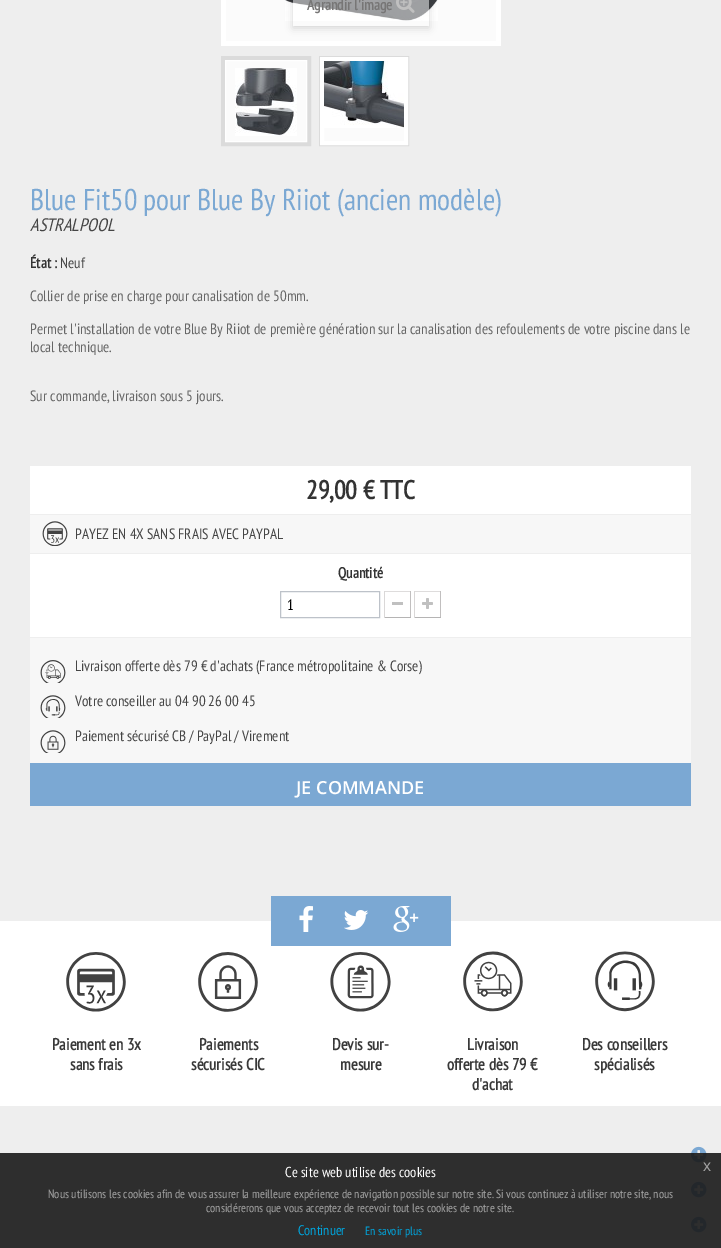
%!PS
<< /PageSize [721 1248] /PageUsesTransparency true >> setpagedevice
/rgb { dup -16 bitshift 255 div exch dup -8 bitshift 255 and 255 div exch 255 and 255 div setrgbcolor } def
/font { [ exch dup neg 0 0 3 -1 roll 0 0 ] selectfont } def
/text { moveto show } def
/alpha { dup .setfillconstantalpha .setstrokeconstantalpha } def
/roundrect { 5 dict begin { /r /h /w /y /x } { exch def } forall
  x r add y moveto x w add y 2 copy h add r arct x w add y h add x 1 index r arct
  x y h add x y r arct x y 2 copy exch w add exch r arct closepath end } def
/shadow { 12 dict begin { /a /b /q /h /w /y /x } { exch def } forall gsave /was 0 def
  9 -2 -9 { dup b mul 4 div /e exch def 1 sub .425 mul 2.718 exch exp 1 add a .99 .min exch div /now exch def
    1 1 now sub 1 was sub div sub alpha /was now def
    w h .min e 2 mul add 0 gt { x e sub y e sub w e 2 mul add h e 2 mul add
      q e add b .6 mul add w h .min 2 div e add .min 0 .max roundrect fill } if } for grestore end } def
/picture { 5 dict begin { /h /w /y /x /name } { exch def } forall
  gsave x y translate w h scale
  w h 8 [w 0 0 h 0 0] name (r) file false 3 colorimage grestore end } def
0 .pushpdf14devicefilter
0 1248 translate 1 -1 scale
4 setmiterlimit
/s1 { /PTSansNarrow-Bold 15 font 16#777676 rgb } def
/s2 { /PTSansNarrow-Regular 30 font 16#7BA8D3 rgb } def
/s3 { /PTSansNarrow-Italic 18 font 16#454545 rgb } def
/s4 { /PTSansNarrow-Bold 15 font 16#333333 rgb } def
/s5 { /PTSansNarrow-Regular 15 font 16#454545 rgb } def
/s6 { /PTSansNarrow-Regular 15 font 16#666666 rgb } def
/s7 { /PTSansNarrow-Bold 26 font 16#333333 rgb } def
/s8 { /PTSansNarrow-Regular 15 font 16#000000 rgb } def
/s9 { /OpenSans-SemiBold 18 font 16#FFFFFF rgb } def
/s10 { /PTSansNarrow-Bold 16.5 font 16#393939 rgb } def
/s11 { /PTSansNarrow-Regular 14.4 font 16#FFFFFF rgb } def
/s12 { /LiberationSans-Regular 16 font 16#A2A2A2 rgb } def
/s13 { /PTSansNarrow-Regular 12 font 16#A2A2A2 rgb } def
/s14 { /PTSansNarrow-Regular 14 font 16#00A3DA rgb } def
/s15 { /PTSansNarrow-Regular 12 font 16#00A3DA rgb } def
16#EEEEEE rgb
0 0 721 1248 rectfill
16#FFFFFF rgb
221 0 280 46 rectfill
16#FBFBFB rgb
226 0 270 41 rectfill
(pic1.raw) 285 0 153 21 picture
gsave
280 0 moveto 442 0 lineto 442 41 lineto 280 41 lineto closepath 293 -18 moveto 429 -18 lineto 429 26 lineto 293 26 lineto closepath eoclip newpath
16#000000 rgb
293 -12 136 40 0 4 0.16 shadow
grestore
0.5 alpha
16#FFFFFF rgb
293 0 136 21 rectfill
1 alpha
s1
(Agrandir l'image) 307 10 text
(pic2.raw) 396 0 19 13 picture
16#DBDBDB rgb
221.5 56.5 89 89 rectstroke
16#FBFBFB rgb
226 61 80 80 rectfill
16#DBDBDB rgb
3 setlinewidth
223.5 58.5 85 85 rectstroke
16#FFFFFF rgb
1 setlinewidth
225.5 60.5 81 81 rectstroke
(pic3.raw) 235 68 62 68 picture
16#DBDBDB rgb
319.5 56.5 89 89 rectstroke
16#FBFBFB rgb
324 128 80 13 rectfill
16#FFFFFF rgb
3 setlinewidth
321.5 58.5 85 85 rectstroke
1 setlinewidth
323.5 60.5 81 81 rectstroke
(pic4.raw) 324 61 80 67 picture
s2
(Blue Fit50 pour Blue By Riiot \(ancien modèle\)) 30 210 text
s3
(ASTRALPOOL) 30 231 text
s4
(État :) 30 268 text
s5
(Neuf) 60 268 text
s6
(Collier de prise en charge pour canalisation de 50mm.) 30 301 text
(Permet l'installation de votre Blue By Riiot de première génération sur la canalisation des refoulements de votre piscine dans le) 30 334 text
(local technique.) 30 352 text
(Sur commande, livraison sous 5 jours.) 30 401 text
16#FFFFFF rgb
30 466 661 48 rectfill
s7
(29,00 € TTC) 306 499 text
16#F7F7F7 rgb
30 515 661 38 rectfill
(pic5.raw) 42 521 26 25 picture
s5
(PAYEZ EN 4X SANS FRAIS AVEC PAYPAL) 75 539 text
16#FFFFFF rgb
30 554 661 83 rectfill
s4
(Quantité) 338 578 text
16#BDC2C9 rgb
280.5 591.5 99 26 rectstroke
s8
(1) 287 610 text
16#DEDCDC rgb
384 591 27 1 rectfill
16#C1BFBF rgb
410 591 1 27 rectfill
16#B5B4B4 rgb
384 617 27 1 rectfill
16#DAD8D8 rgb
384 591 1 27 rectfill
16#C0C0C0 rgb
392 602 11 3 rectfill
16#DEDCDC rgb
414 591 27 1 rectfill
16#C1BFBF rgb
440 591 1 27 rectfill
16#B5B4B4 rgb
414 617 27 1 rectfill
16#DAD8D8 rgb
414 591 1 27 rectfill
(pic6.raw) 422 598 11 11 picture
16#F7F7F7 rgb
30 638 661 125 rectfill
(pic7.raw) 40 660 26 23 picture
s5
(Livraison offerte dès 79 € d'achats \(France métropolitaine & Corse\)) 75 671 text
(pic8.raw) 40 695 26 23 picture
(Votre conseiller au 04 90 26 00 45) 75 706 text
(pic9.raw) 40 730 26 23 picture
(Paiement sécurisé CB / PayPal / Virement) 75 741 text
16#7BA8D3 rgb
30 763 661 43 rectfill
s9
(JE COMMANDE) 296 794 text
0 921 721 185 rectfill
16#7BA8D3 rgb
271 896 180 50 rectfill
(pic10.raw) 299 906 14 26 picture
(pic11.raw) 344 910 25 20 picture
(pic12.raw) 393 906 26 26 picture
(pic13.raw) 66 952 60 60 picture
s10
(Paiement en 3x) 52 1050 text
(sans frais) 70 1070 text
(pic14.raw) 198 952 60 60 picture
(Paiements) 199 1050 text
(sécurisés CIC) 191 1070 text
(pic15.raw) 330 952 61 60 picture
(Devis sur-) 332 1050 text
(mesure) 340 1070 text
(pic16.raw) 463 951 60 61 picture
(Livraison) 467 1050 text
(offerte dès 79 €) 447 1070 text
(d'achat) 472 1090 text
(pic17.raw) 595 951 60 61 picture
(Des conseillers) 582 1050 text
(spécialisés) 594 1070 text
(pic18.raw) 691 1146 16 17 picture
(pic18.raw) 691 1181 16 17 picture
(pic18.raw) 691 1216 16 17 picture
0.9 alpha
16#191919 rgb
0 1153 721 95 rectfill
1 alpha
s11
(Ce site web utilise des cookies) 285 1177 text
s12
(x) 703 1171 text
s13
(Nous utilisons les cookies afin de vous assurer la meilleure expérience de navigation possible sur notre site. Si vous continuez à utiliser notre site, nous) 48 1198 text
(considérerons que vous acceptez de recevoir tout les cookies de notre site.) 206 1212 text
s14
(Continuer) 298 1235 text
s15
(En savoir plus) 365 1235 text
.poppdf14devicefilter showpage
